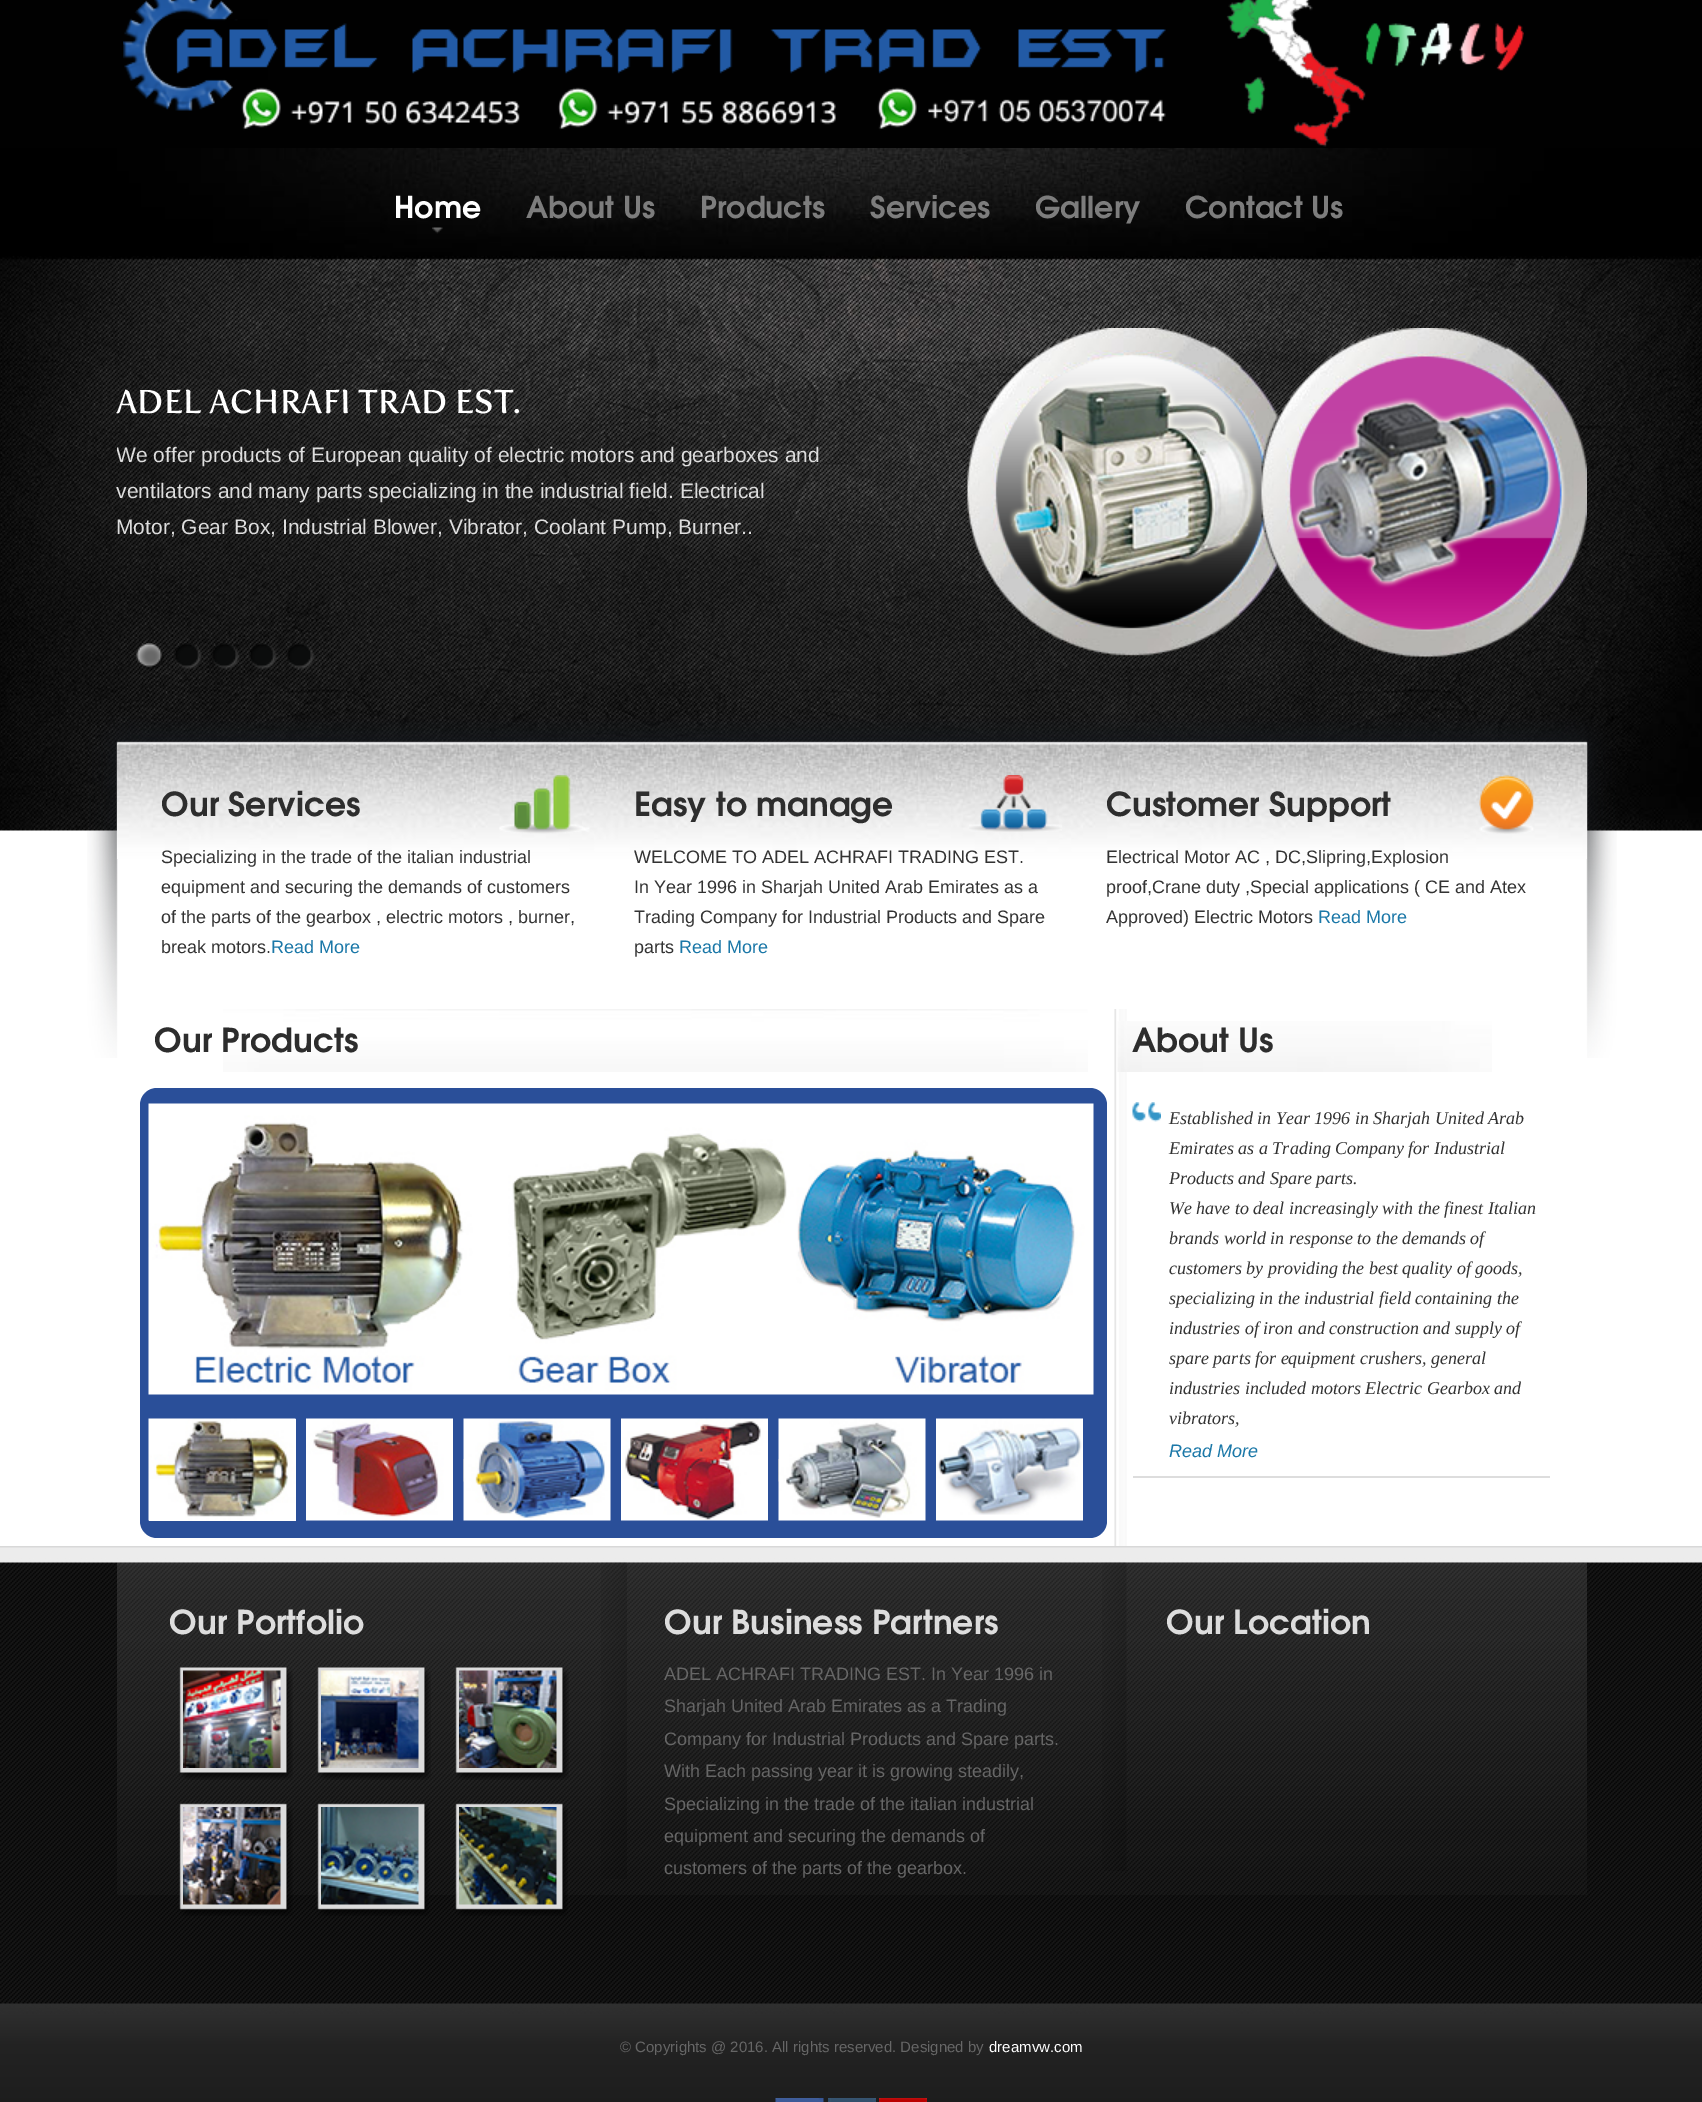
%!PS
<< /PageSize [1702 2102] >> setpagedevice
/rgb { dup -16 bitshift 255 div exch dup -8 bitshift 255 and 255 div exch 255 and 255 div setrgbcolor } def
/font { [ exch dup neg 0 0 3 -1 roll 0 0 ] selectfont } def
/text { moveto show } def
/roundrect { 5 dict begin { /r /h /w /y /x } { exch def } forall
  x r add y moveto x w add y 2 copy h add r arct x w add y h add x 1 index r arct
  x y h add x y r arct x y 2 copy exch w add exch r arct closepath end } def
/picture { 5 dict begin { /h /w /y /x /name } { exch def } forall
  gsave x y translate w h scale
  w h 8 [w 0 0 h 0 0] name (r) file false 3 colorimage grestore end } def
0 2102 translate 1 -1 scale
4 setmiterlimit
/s1 { /TeXGyreAdventor-Bold 30 font 16#FFFFFF rgb } def
/s2 { /TeXGyreAdventor-Bold 30 font 16#7D7D7D rgb } def
/s3 { /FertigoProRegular-Regular 33 font 16#FFFFFF rgb } def
/s4 { /LiberationSans-Regular 21 font 16#DDDDDD rgb } def
/s5 { /TeXGyreAdventor-Bold 33 font 16#2D2D2D rgb } def
/s6 { /LiberationSans-Regular 18 font 16#333333 rgb } def
/s7 { /LiberationSans-Regular 18 font 16#1B78A8 rgb } def
/s8 { /LiberationSerif-Italic 18 font 16#333333 rgb } def
/s9 { /LiberationSans-Italic 18 font 16#1B78A8 rgb } def
/s10 { /TeXGyreAdventor-Bold 33 font 16#DDDDDD rgb } def
/s11 { /LiberationSans-Regular 18 font 16#666666 rgb } def
/s12 { /LiberationSans-Regular 15 font 16#666666 rgb } def
/s13 { /LiberationSans-Regular 15 font 16#FFFFFF rgb } def
16#FFFFFF rgb
0 0 1702 2102 rectfill
16#010101 rgb
0 0 1702 148 rectfill
(pic1.raw) 0 148 1702 683 picture
(pic2.raw) 123 0 1401 147 picture
(pic3.raw) 432 227 11 7 picture
s1
(Home) 394 218 text
s2
(About Us) 526 218 text
(Products) 700 218 text
(Services) 870 218 text
(Gallery) 1035 218 text
(Contact Us) 1185 218 text
s3
(ADEL ACHRAFI TRAD EST.) 116 413 text
gsave
117 329 1470 348 rectclip
s4
(We offer products of European quality of electric motors and gearboxes and) 116 462 text
grestore
s4
(ventilators and many parts specializing in the industrial field. Electrical) 116 498 text
(Motor, Gear Box, Industrial Blower, Vibrator, Coolant Pump, Burner..) 116 534 text
(pic4.raw) 967 328 620 330 picture
(pic5.raw) 136 643 28 26 picture
(pic6.raw) 174 643 28 27 picture
(pic7.raw) 211 643 29 27 picture
(pic8.raw) 249 643 28 27 picture
(pic9.raw) 286 643 29 27 picture
(pic10.raw) 87 716 1530 342 picture
(pic11.raw) 117 743 1470 116 picture
s5
(Our Services) 161 816 text
(pic12.raw) 499 775 91 59 picture
s6
(Specializing in the trade of the italian industrial) 161 863 text
(equipment and securing the demands of customers) 161 893 text
(of the parts of the gearbox , electric motors , burner,) 161 923 text
(break motors.) 161 953 text
s7
(Read More) 271 953 text
s5
(Easy to manage) 634 816 text
(pic13.raw) 969 775 93 57 picture
s6
(WELCOME TO ADEL ACHRAFI TRADING EST.) 634 863 text
(In Year 1996 in Sharjah United Arab Emirates as a) 634 893 text
(Trading Company for Industrial Products and Spare) 634 923 text
(parts) 634 953 text
s7
(Read More) 679 953 text
s5
(Customer Support) 1106 816 text
(pic14.raw) 1479 775 55 59 picture
s6
(Electrical Motor AC , DC,Slipring,Explosion) 1106 863 text
(proof,Crane duty ,Special applications \( CE and Atex) 1106 893 text
(Approved\) Electric Motors) 1106 923 text
s7
(Read More) 1318 923 text
(pic15.raw) 1114 1009 13 537 picture
(pic16.raw) 223 1009 865 63 picture
s5
(Our Products) 154 1052 text
16#2A4F99 rgb
140 1088 967 450 17 roundrect fill
(pic17.raw) 148 1103 946 292 picture
16#FFFFFF rgb
149 1419 147 102 rectfill
(pic18.raw) 148 1418 148 103 picture
(pic19.raw) 306 1418 147 103 picture
(pic20.raw) 463 1459 1 23 picture
(pic21.raw) 463 1418 148 103 picture
(pic22.raw) 621 1418 147 103 picture
(pic20.raw) 778 1459 1 23 picture
(pic23.raw) 778 1418 148 103 picture
(pic24.raw) 936 1418 147 103 picture
(pic25.raw) 1117 1021 375 51 picture
s5
(About Us) 1132 1052 text
(pic26.raw) 1132 1102 29 20 picture
16#DDDDDD rgb
1133 1476 417 2 rectfill
s8
(Established in Year 1996 in Sharjah United Arab) 1169 1124 text
(Emirates as a Trading Company for Industrial) 1169 1154 text
(Products and Spare parts.) 1169 1184 text
(We have to deal increasingly with the finest Italian) 1169 1214 text
(brands world in response to the demands of) 1169 1244 text
(customers by providing the best quality of goods,) 1169 1274 text
(specializing in the industrial field containing the) 1169 1304 text
(industries of iron and construction and supply of) 1169 1334 text
(spare parts for equipment crushers, general) 1169 1364 text
(industries included motors Electric Gearbox and) 1169 1394 text
(vibrators,) 1169 1424 text
s9
(Read More) 1169 1457 text
(pic27.raw) 0 1546 1702 556 picture
(pic28.raw) 117 1562 1470 333 picture
(pic29.raw) 601 1562 26 317 picture
s10
(Our Portfolio) 169 1634 text
(pic30.raw) 179 1667 114 113 picture
(pic31.raw) 183 1670 98 98 picture
(pic32.raw) 317 1667 114 113 picture
(pic33.raw) 321 1670 98 98 picture
(pic34.raw) 455 1667 114 113 picture
(pic35.raw) 459 1670 98 98 picture
(pic36.raw) 179 1803 114 113 picture
(pic37.raw) 183 1807 98 98 picture
(pic38.raw) 317 1803 113 113 picture
(pic39.raw) 321 1807 98 98 picture
(pic40.raw) 455 1803 113 113 picture
(pic41.raw) 459 1807 98 98 picture
(Our Business Partners) 664 1634 text
s11
(ADEL ACHRAFI TRADING EST. In Year 1996 in) 664 1680 text
(Sharjah United Arab Emirates as a Trading) 664 1712 text
(Company for Industrial Products and Spare parts.) 664 1745 text
(With Each passing year it is growing steadily,) 664 1777 text
(Specializing in the trade of the italian industrial) 664 1810 text
(equipment and securing the demands of) 664 1842 text
(customers of the parts of the gearbox.) 664 1874 text
(pic42.raw) 1102 1562 25 309 picture
s10
(Our Location) 1166 1634 text
s12
(© Copyrights @ 2016. All rights reserved. Designed by) 620 2052 text
s13
(dreamvw.com) 989 2052 text
(pic43.raw) 775 2098 49 4 picture
(pic44.raw) 828 2098 48 4 picture
(pic45.raw) 879 2098 48 4 picture
showpage
